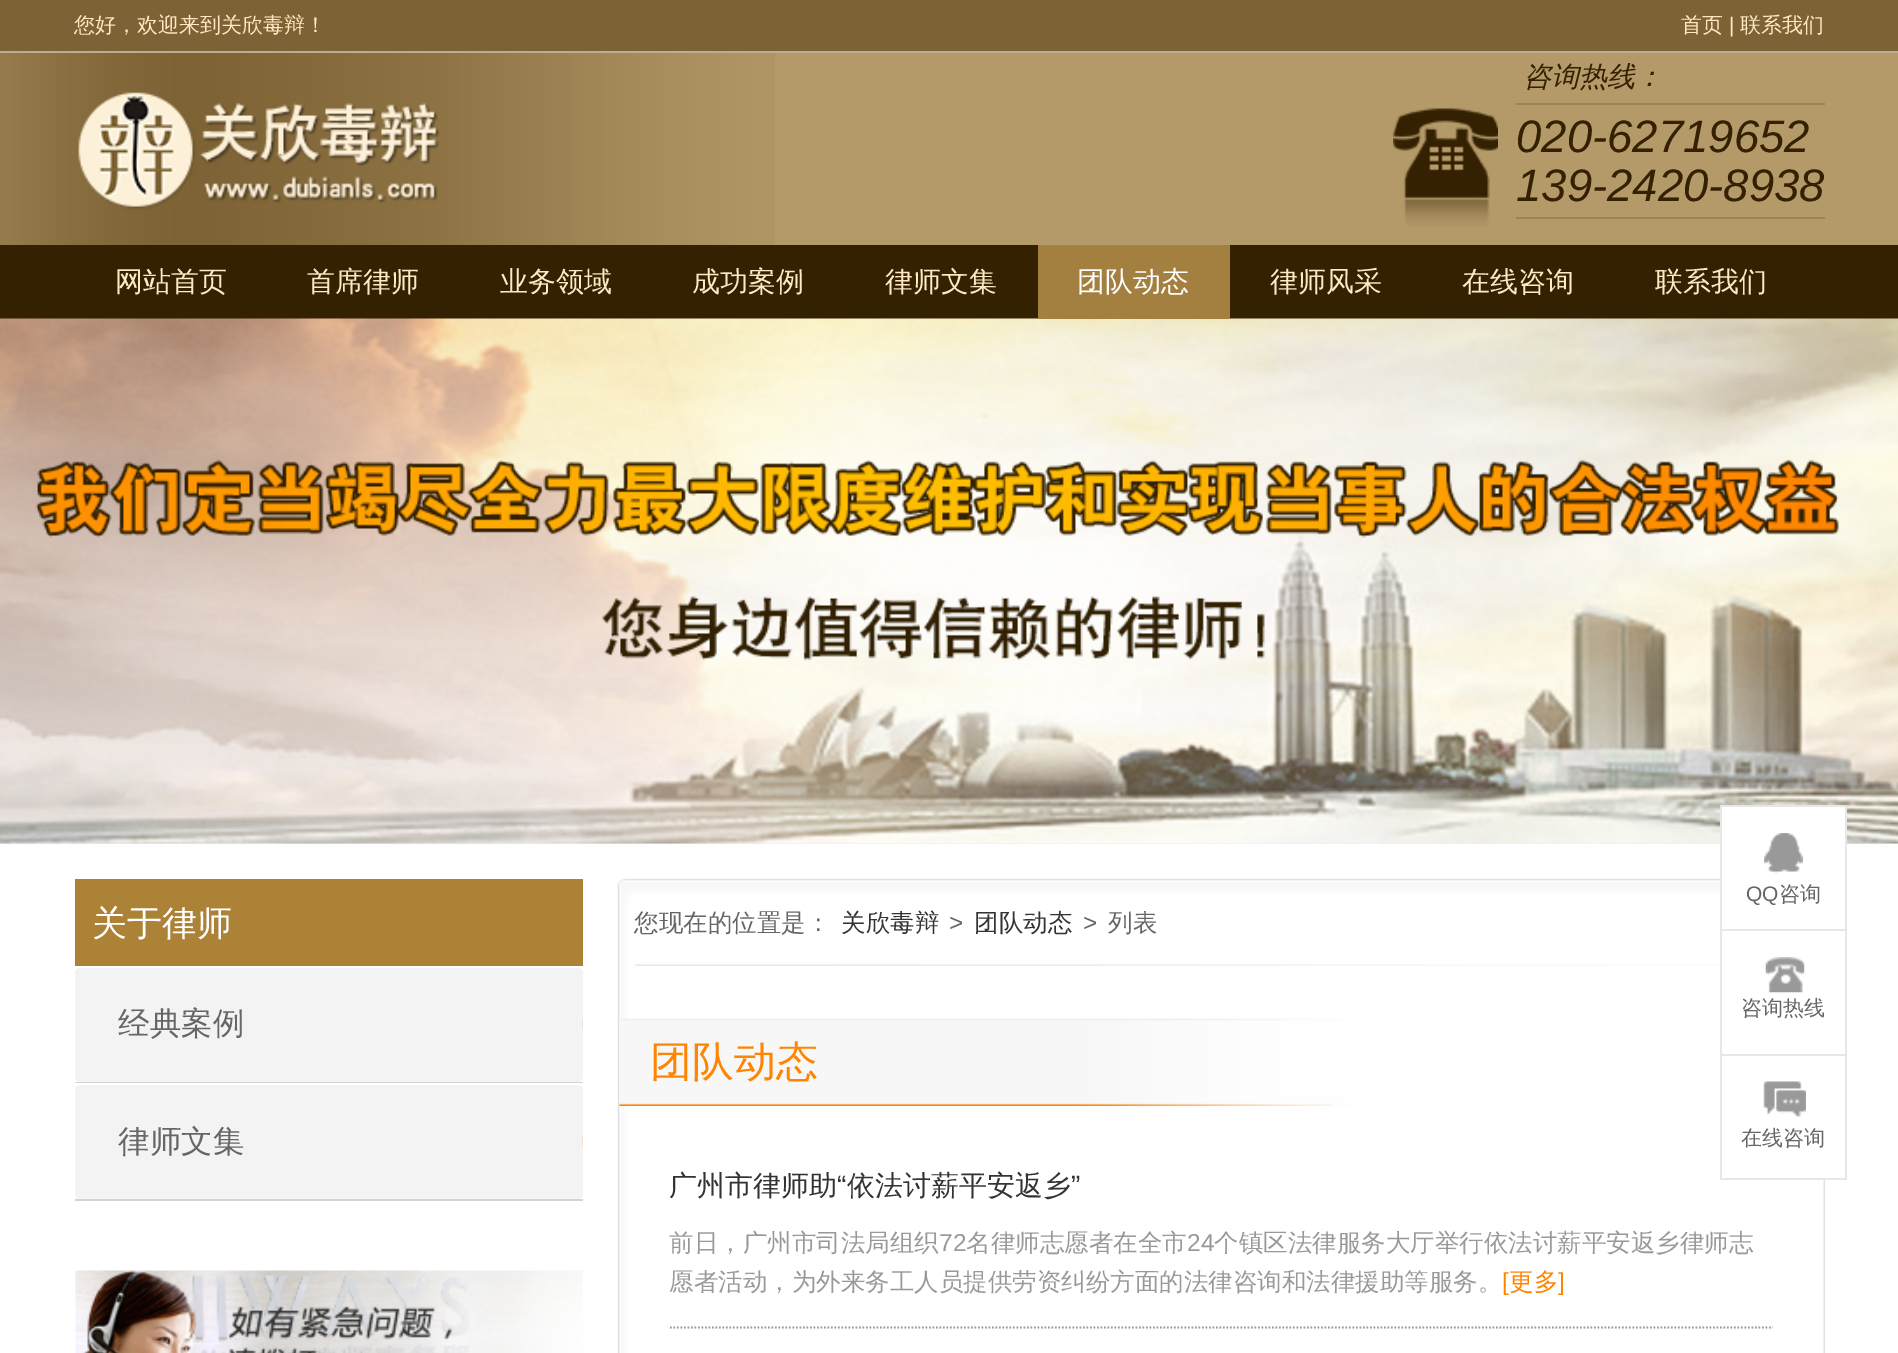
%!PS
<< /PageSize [1898 1353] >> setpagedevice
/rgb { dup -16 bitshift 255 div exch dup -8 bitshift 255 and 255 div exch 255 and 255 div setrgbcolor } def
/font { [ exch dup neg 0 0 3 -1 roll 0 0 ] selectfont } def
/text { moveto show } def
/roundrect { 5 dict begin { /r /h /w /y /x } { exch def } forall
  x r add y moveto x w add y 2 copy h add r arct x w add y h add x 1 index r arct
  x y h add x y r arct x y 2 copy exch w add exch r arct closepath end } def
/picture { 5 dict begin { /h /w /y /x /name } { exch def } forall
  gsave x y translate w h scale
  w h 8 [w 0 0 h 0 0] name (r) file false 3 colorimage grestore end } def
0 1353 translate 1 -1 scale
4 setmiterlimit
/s1 { /WenQuanYiZenHei-Medium 21 font 16#FFE9C4 rgb } def
/s2 { /LiberationSans-Regular 21 font 16#FFE9C4 rgb } def
/s3 { /WenQuanYiZenHei-MediumItalic 28 font 16#332102 rgb } def
/s4 { /LiberationSans-Italic 45.5 font 16#332102 rgb } def
/s5 { /WenQuanYiZenHei-Medium 28 font 16#FFE9C4 rgb } def
/s6 { /WenQuanYiZenHei-Medium 28 font 16#FFFFFF rgb } def
/s7 { /WenQuanYiZenHei-Medium 35 font 16#FFFFFF rgb } def
/s8 { /WenQuanYiZenHei-Medium 31.5 font 16#666666 rgb } def
/s9 { /WenQuanYiZenHei-Medium 24.5 font 16#666666 rgb } def
/s10 { /WenQuanYiZenHei-Medium 24.5 font 16#333333 rgb } def
/s11 { /LiberationSans-Regular 24.5 font 16#666666 rgb } def
/s12 { /WenQuanYiZenHei-Medium 42 font 16#FF8400 rgb } def
/s13 { /WenQuanYiZenHei-Medium 28 font 16#333333 rgb } def
/s14 { /LiberationSans-Regular 28 font 16#333333 rgb } def
/s15 { /WenQuanYiZenHei-Medium 24.5 font 16#999999 rgb } def
/s16 { /LiberationSans-Regular 24.5 font 16#999999 rgb } def
/s17 { /LiberationSans-Regular 24.5 font 16#FF8400 rgb } def
/s18 { /WenQuanYiZenHei-Medium 24.5 font 16#FF8400 rgb } def
/s19 { /LiberationSans-Regular 21 font 16#666666 rgb } def
/s20 { /WenQuanYiZenHei-Medium 21 font 16#666666 rgb } def
16#FFFFFF rgb
0 0 1898 1353 rectfill
16#B49969 rgb
775 53 1123 192 rectfill
(pic1.raw) 0 53 775 192 picture
16#7C6234 rgb
0 0 1898 51 rectfill
16#BBAD95 rgb
0 51 1898 2 rectfill
s1
(您好，欢迎来到关欣毒辩！) 74 32 text
(首页) 1681 32 text
s2
(|) 1729 32 text
s1
(联系我们) 1740 32 text
(pic2.raw) 78 92 362 118 picture
(pic3.raw) 1393 108 105 119 picture
16#9F8353 rgb
1516 103 309 2 rectfill
s3
(咨询热线：) 1523 86 text
s4
(020-62719652) 1516 152 text
16#9F8353 rgb
1516 217 309 2 rectfill
s4
(139-2420-8938) 1516 201 text
0 245 1898 74 rectfill
s5
(网站首页) 115 291 text
(首席律师) 307 291 text
(业务领域) 500 291 text
(成功案例) 692 291 text
(律师文集) 885 291 text
16#F0EDE8 rgb
0 843 1898 1 rectfill
(pic4.raw) 0 318 1898 526 picture
16#A48040 rgb
1038 245 192 74 rectfill
s6
(团队动态) 1077 291 text
s5
(律师风采) 1270 291 text
(在线咨询) 1462 291 text
(联系我们) 1655 291 text
16#AC8237 rgb
75 879 508 87 rectfill
s7
(关于律师) 92 935 text
16#D4D4D4 rgb
75 1082 508 1 rectfill
16#F3F3F3 rgb
75 968 508 114 5 roundrect fill
s8
(经典案例) 118 1034 text
(pic5.raw) 582 1016 1 15 picture
16#D4D4D4 rgb
75 1199 508 2 rectfill
16#F3F3F3 rgb
75 1085 508 114 5 roundrect fill
s8
(律师文集) 118 1152 text
(pic6.raw) 582 1134 1 14 picture
(pic7.raw) 75 1270 508 83 picture
(pic8.raw) 617 878 1103 88 picture
s9
(您现在的位置是：) 634 931 text
s10
(关欣毒辩) 841 931 text
s11
(>) 949 931 text
s10
(团队动态) 974 931 text
s11
(>) 1083 931 text
s9
(列表) 1108 931 text
(pic9.raw) 617 966 1208 387 picture
(pic10.raw) 619 1018 1101 88 picture
s12
(团队动态) 650 1076 text
16#999999 rgb
1.8 setlinewidth
[1.75 1.75] 0 setdash
670 1327.5 moveto 1773 1327.5 lineto stroke
s13
(广州市律师助) 669 1195 text
s14
(“) 837 1195 text
s13
(依法讨薪平安返乡) 847 1195 text
s14
(”) 1071 1195 text
s15
(前日，广州市司法局组织) 669 1251 text
s16
(72) 939 1251 text
s15
(名律师志愿者在全市) 966 1251 text
s16
(24) 1187 1251 text
s15
(个镇区法律服务大厅举行依法讨薪平安返乡律师志) 1214 1251 text
(愿者活动，为外来务工人员提供劳资纠纷方面的法律咨询和法律援助等服务。) 669 1290 text
s17
([) 1502 1290 text
s18
(更多) 1509 1290 text
s17
(]) 1558 1290 text
16#FFFFFF rgb
1722 807 123 371 rectfill
16#E7E7E7 rgb
1720 805 126 2 rectfill
1845 805 2 375 rectfill
1720 805 2 375 rectfill
1722 929 123 2 rectfill
(pic11.raw) 1764 833 39 41 picture
s19
(QQ) 1746 901 text
s20
(咨询) 1779 901 text
16#E7E7E7 rgb
1722 1054 123 2 rectfill
(pic12.raw) 1765 957 40 36 picture
s20
(咨询热线) 1741 1015 text
16#E7E7E7 rgb
1722 1178 123 2 rectfill
(pic13.raw) 1763 1081 43 36 picture
s20
(在线咨询) 1741 1145 text
showpage
